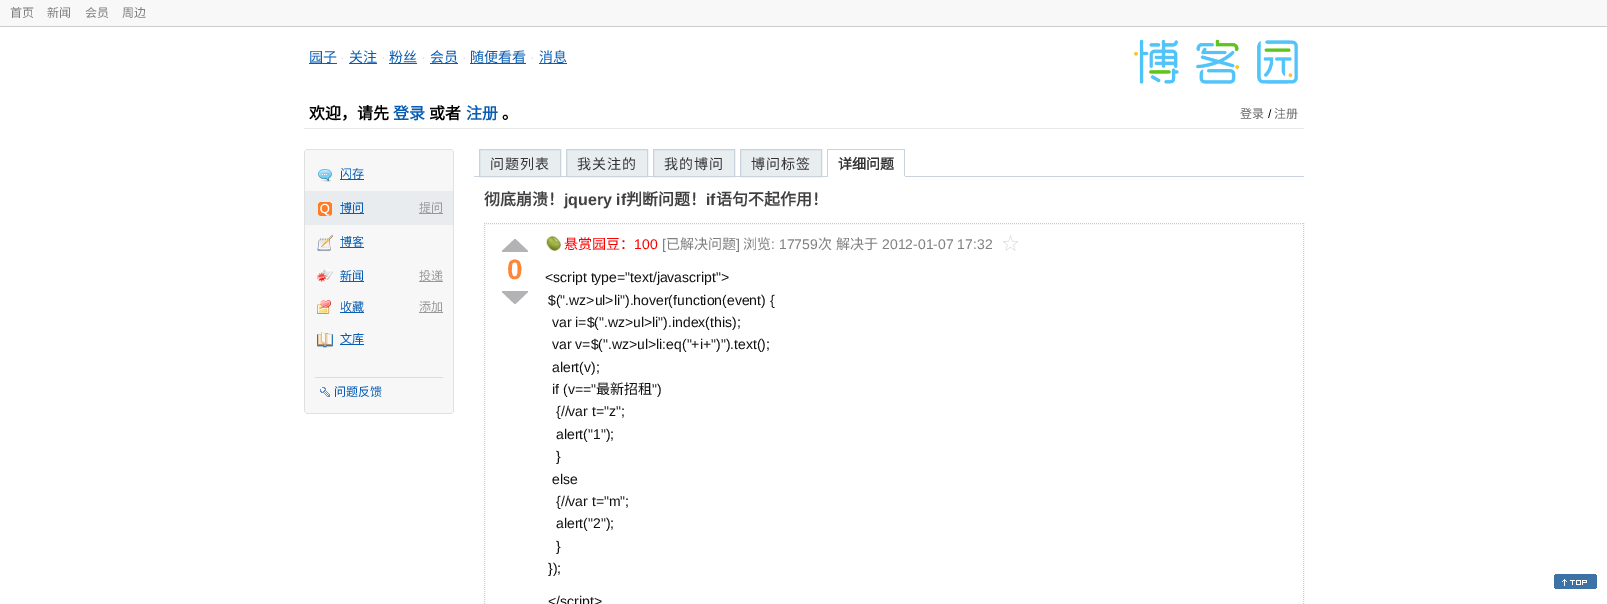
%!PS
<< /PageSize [1607 604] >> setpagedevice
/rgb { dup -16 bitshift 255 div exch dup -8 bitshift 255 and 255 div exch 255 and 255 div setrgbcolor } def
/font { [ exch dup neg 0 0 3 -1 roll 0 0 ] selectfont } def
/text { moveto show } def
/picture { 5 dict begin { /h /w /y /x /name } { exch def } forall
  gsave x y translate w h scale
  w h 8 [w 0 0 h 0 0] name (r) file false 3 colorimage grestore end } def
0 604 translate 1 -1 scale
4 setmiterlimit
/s1 { /NotoSansCJKSC-Regular 12 font 16#808080 rgb } def
/s2 { /NotoSansCJKSC-Regular 14 font 16#075DB3 rgb } def
/s3 { /LiberationSans-Regular 14 font 16#DFDFDF rgb } def
/s4 { /NotoSansCJKSC-Bold 16 font 16#000000 rgb } def
/s5 { /NotoSansCJKSC-Bold 16 font 16#075DB3 rgb } def
/s6 { /NotoSansCJKSC-Regular 12 font 16#666666 rgb } def
/s7 { /LiberationSans-Regular 12 font 16#000000 rgb } def
/s8 { /NotoSansCJKSC-Regular 12 font 16#075DB3 rgb } def
/s9 { /NotoSansCJKSC-Regular 12 font 16#999999 rgb } def
/s10 { /NotoSansCJKSC-Bold 14 font 16#333333 rgb } def
/s11 { /NotoSansCJKSC-Bold 16 font 16#404040 rgb } def
/s12 { /LiberationSans-Bold 16 font 16#404040 rgb } def
/s13 { /LiberationSans-Bold 28 font 16#FF8635 rgb } def
/s14 { /NotoSansCJKSC-Regular 14 font 16#FF0000 rgb } def
/s15 { /LiberationSans-Regular 14 font 16#FF0000 rgb } def
/s16 { /LiberationSans-Regular 14 font 16#808080 rgb } def
/s17 { /NotoSansCJKSC-Regular 14 font 16#808080 rgb } def
/s18 { /LiberationSans-Regular 14 font 16#111111 rgb } def
/s19 { /NotoSansCJKSC-Regular 14 font 16#111111 rgb } def
16#FFFFFF rgb
0 0 1607 604 rectfill
16#F8F8F8 rgb
0 0 1607 26 rectfill
16#CCCCCC rgb
0 26 1607 1 rectfill
s1
(首页) 10 17 text
(新闻) 47 17 text
(会员) 85 17 text
(周边) 122 17 text
16#E8E8E8 rgb
304 128 1000 1 rectfill
16#075DB3 rgb
309 63 28 1 rectfill
s2
(园子) 309 62 text
s3
(·) 340 62 text
16#075DB3 rgb
349 63 28 1 rectfill
s2
(关注) 349 62 text
s3
(·) 381 62 text
16#075DB3 rgb
389 63 28 1 rectfill
s2
(粉丝) 389 62 text
s3
(·) 421 62 text
16#075DB3 rgb
430 63 28 1 rectfill
s2
(会员) 430 62 text
s3
(·) 462 62 text
16#075DB3 rgb
470 63 56 1 rectfill
s2
(随便看看) 470 62 text
s3
(·) 530 62 text
16#075DB3 rgb
539 63 28 1 rectfill
s2
(消息) 539 62 text
(pic1.raw) 1134 39 165 45 picture
s4
(欢迎，请先) 309 119 text
s5
(登录) 393 119 text
s4
(或者) 429 119 text
s5
(注册) 466 119 text
s4
(。) 502 119 text
s6
(登录) 1240 118 text
s7
(/) 1268 118 text
s6
(注册) 1274 118 text
16#DFE1E1 rgb
306 149 146 1 rectfill
16#F7F7F7 rgb
305 150 148 1 rectfill
16#DFE1E1 rgb
452 150 1 1 rectfill
305 150 1 1 rectfill
16#F7F7F7 rgb
304 151 150 1 rectfill
16#DBDEE2 rgb
453 151 1 1 rectfill
16#DFE1E1 rgb
304 151 1 260 rectfill
16#F7F7F7 rgb
305 152 148 259 rectfill
16#DFE1E1 rgb
453 152 1 259 rectfill
(pic2.raw) 318 169 14 13 picture
s8
(闪存) 340 178 text
340 179 24 1 rectfill
16#E9ECEF rgb
305 191 148 34 rectfill
(pic3.raw) 318 202 14 14 picture
s8
(博问) 340 212 text
340 213 24 1 rectfill
s9
(提问) 419 212 text
419 213 24 1 rectfill
(pic4.raw) 317 235 16 16 picture
s8
(博客) 340 246 text
340 247 24 1 rectfill
(pic5.raw) 317 269 16 13 picture
(新闻) 340 280 text
340 281 24 1 rectfill
s9
(投递) 419 280 text
419 281 24 1 rectfill
(pic6.raw) 317 300 14 14 picture
s8
(收藏) 340 311 text
340 312 24 1 rectfill
s9
(添加) 419 311 text
419 312 24 1 rectfill
(pic7.raw) 317 332 16 16 picture
s8
(文库) 340 343 text
340 344 24 1 rectfill
16#DDDDDD rgb
315 377 128 1 rectfill
(pic8.raw) 320 387 10 10 picture
s8
(问题反馈) 334 396 text
16#F7F7F7 rgb
304 411 150 1 rectfill
16#DBDEE2 rgb
453 411 1 1 rectfill
16#DFE1E1 rgb
304 411 1 1 rectfill
16#F7F7F7 rgb
305 412 148 1 rectfill
16#DFE1E1 rgb
452 412 1 1 rectfill
305 412 1 1 rectfill
306 413 146 1 rectfill
16#C8D3DE rgb
474 176 830 1 rectfill
16#E8EDF0 rgb
479.5 149.5 moveto 560.5 149.5 lineto 560.5 176.5 lineto 479.5 176.5 lineto closepath gsave fill grestore
16#C8D3DE rgb
stroke
/NotoSansCJKSC-Regular 14 font
16#333333 rgb
490 169 moveto 1 0 (问题列表) ashow
16#E8EDF0 rgb
566.5 149.5 moveto 647.5 149.5 lineto 647.5 176.5 lineto 566.5 176.5 lineto closepath gsave fill grestore
16#C8D3DE rgb
stroke
16#333333 rgb
577 169 moveto 1 0 (我关注的) ashow
16#E8EDF0 rgb
653.5 149.5 moveto 734.5 149.5 lineto 734.5 176.5 lineto 653.5 176.5 lineto closepath gsave fill grestore
16#C8D3DE rgb
stroke
16#333333 rgb
664 169 moveto 1 0 (我的博问) ashow
16#E8EDF0 rgb
740.5 149.5 moveto 821.5 149.5 lineto 821.5 176.5 lineto 740.5 176.5 lineto closepath gsave fill grestore
16#C8D3DE rgb
stroke
16#333333 rgb
751 169 moveto 1 0 (博问标签) ashow
16#C8D3DE rgb
827 149 78 1 rectfill
904 149 1 28 rectfill
16#FFFFFF rgb
827 176 78 1 rectfill
16#C8D3DE rgb
827 149 1 28 rectfill
s10
(详细问题) 838 169 text
s11
(彻底崩溃！) 484 205 text
s12
(jquery if) 564 205 text
s11
(判断问题！) 626 205 text
s12
(if) 706 205 text
s11
(语句不起作用！) 716 205 text
16#CCCCCC rgb
[1 1] 0 setdash
484 223.5 moveto 1304 223.5 lineto stroke
1303.5 223 moveto 1303.5 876 lineto stroke
484.5 223 moveto 484.5 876 lineto stroke
(pic9.raw) 502 239 26 13 picture
s13
(0) 507 279 text
(pic10.raw) 502 291 26 13 picture
(pic11.raw) 546 235 15 16 picture
s14
(悬赏园豆：) 564 249 text
s15
(100) 634 249 text
s16
([) 662 249 text
s17
(已解决问题) 666 249 text
s16
(]) 736 249 text
s17
(浏览) 743 249 text
s16
(: 17759) 771 249 text
s17
(次) 818 249 text
(解决于) 836 249 text
s16
(2012-01-07 17:32) 882 249 text
(pic12.raw) 1003 235 15 16 picture
s18
(<script type="text/javascript">) 545 282 text
($\(".wz>ul>li"\).hover\(function\(event\) {) 548 305 text
(var i=$\(".wz>ul>li"\).index\(this\);) 552 327 text
(var v=$\(".wz>ul>li:eq\("+i+"\)"\).text\(\);) 552 349 text
(alert\(v\);) 552 372 text
(if \(v==") 552 394 text
s19
(最新招租) 596 394 text
s18
("\)) 652 394 text
({//var t="z";) 556 416 text
(alert\("1"\);) 556 439 text
(}) 556 461 text
(else) 552 484 text
({//var t="m";) 556 506 text
(alert\("2"\);) 556 528 text
(}) 556 551 text
(}\);) 548 573 text
(</script>) 548 606 text
(pic13.raw) 1554 574 43 15 picture
showpage
